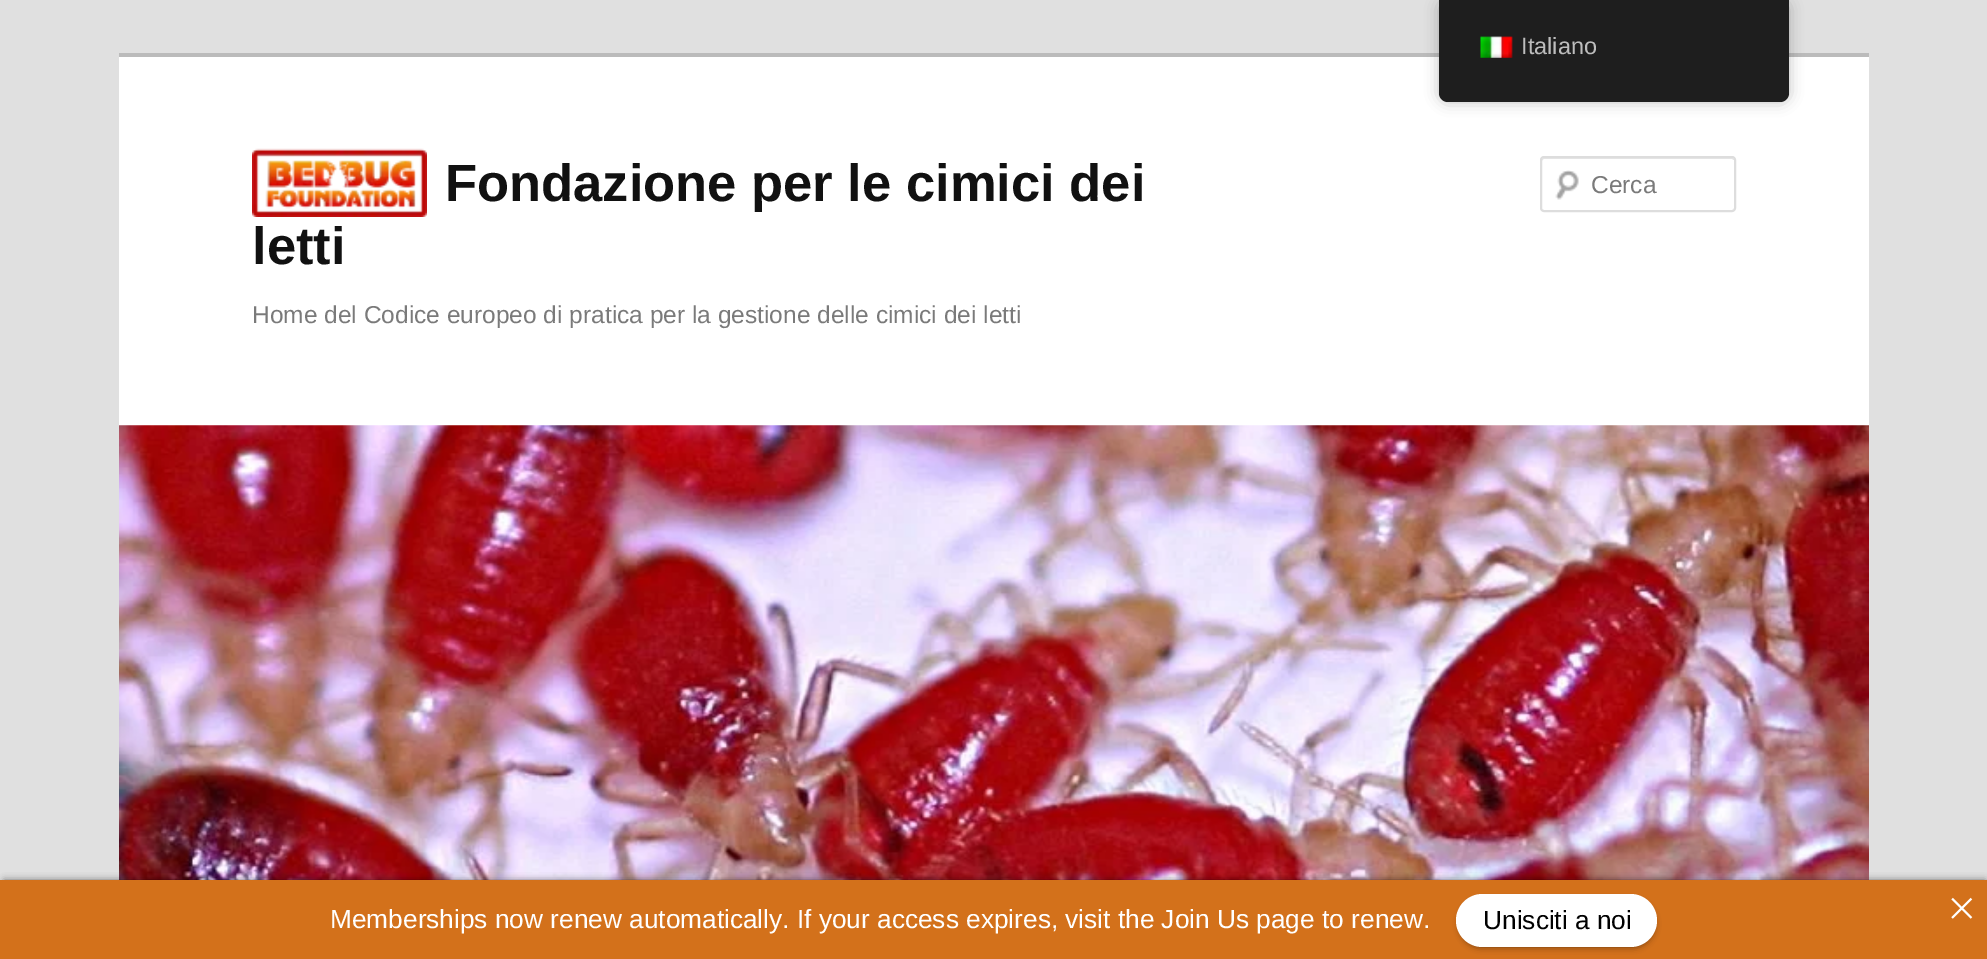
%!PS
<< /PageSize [1987 959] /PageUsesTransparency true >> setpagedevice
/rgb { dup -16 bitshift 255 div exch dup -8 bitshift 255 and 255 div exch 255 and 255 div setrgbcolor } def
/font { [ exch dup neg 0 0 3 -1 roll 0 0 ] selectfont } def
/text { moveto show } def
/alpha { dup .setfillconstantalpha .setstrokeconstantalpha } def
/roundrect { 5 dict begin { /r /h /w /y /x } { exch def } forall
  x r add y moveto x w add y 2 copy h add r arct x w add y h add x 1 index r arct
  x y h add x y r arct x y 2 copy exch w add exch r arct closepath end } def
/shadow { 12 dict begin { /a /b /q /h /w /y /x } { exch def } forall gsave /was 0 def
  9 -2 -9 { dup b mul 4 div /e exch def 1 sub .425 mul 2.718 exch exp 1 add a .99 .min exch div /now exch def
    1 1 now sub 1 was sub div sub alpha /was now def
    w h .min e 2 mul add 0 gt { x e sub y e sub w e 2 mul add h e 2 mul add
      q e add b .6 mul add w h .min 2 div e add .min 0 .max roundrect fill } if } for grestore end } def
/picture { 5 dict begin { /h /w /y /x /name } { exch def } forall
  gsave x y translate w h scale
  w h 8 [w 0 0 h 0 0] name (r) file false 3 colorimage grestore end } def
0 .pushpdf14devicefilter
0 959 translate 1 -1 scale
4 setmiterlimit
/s1 { /LiberationSans-Regular 23.5 font 16#BDBDBD rgb } def
/s2 { /LiberationSans-Bold 52.5 font 16#111111 rgb } def
/s3 { /LiberationSans-Regular 24.5 font 16#7A7A7A rgb } def
/s4 { /LiberationSans-Regular 26.25 font 16#FFFFFF rgb } def
/s5 { /LiberationSans-Regular 26.25 font 16#000000 rgb } def
16#E0E0E0 rgb
0 0 1987 959 rectfill
16#FFFFFF rgb
119 57 1750 369 rectfill
16#BBBBBB rgb
119 53 1750 4 rectfill
16#000000 rgb
1439 0 350 102 9 7 0.25 shadow
16#1E1E1E rgb
1439 0 moveto 1789 0 lineto 1789 93 lineto 1789 98 1785 102 1780 102 curveto 1448 102 lineto 1443 102 1439 98 1439 93 curveto closepath fill
(pic1.raw) 1480 36 33 22 picture
s1
(Italiano) 1521 54 text
(pic2.raw) 252 148 175 69 picture
s2
(Fondazione per le cimici dei) 445 201 text
(letti) 252 264 text
s3
(Home del Codice europeo di pratica per la gestione delle cimici dei letti) 252 323 text
(pic3.raw) 1555 170 24 30 picture
16#E6E6E6 rgb
1544 159 moveto 1732 159 lineto 1734 160 lineto 1734 161 lineto 1734 160 lineto 1734 159 1733 158 1732 158 curveto 1544 158 lineto 1543 158 1542 159 1542 160 curveto 1542 161 lineto 1542 160 1543 159 1544 159 curveto closepath fill
16#DDDDDD rgb
2 setlinewidth
1541 157 194 54 3 roundrect stroke
s3
(Cerca) 1591 193 text
(pic4.raw) 119 425 1750 455 picture
16#000000 rgb
4 880 1981 72 0 3.5 0.5 shadow
16#D3711B rgb
0 880 1987 79 rectfill
s4
(Memberships now renew automatically. If your access expires, visit the Join Us page to renew.) 330 928 text
16#000000 rgb
1460 901 194 46 23 3.5 0.5 shadow
16#FFFFFF rgb
1456 894 201 53 26.5 roundrect fill
s5
(Unisciti a noi) 1483 929 text
(pic5.raw) 1951 897 22 22 picture
.poppdf14devicefilter showpage
